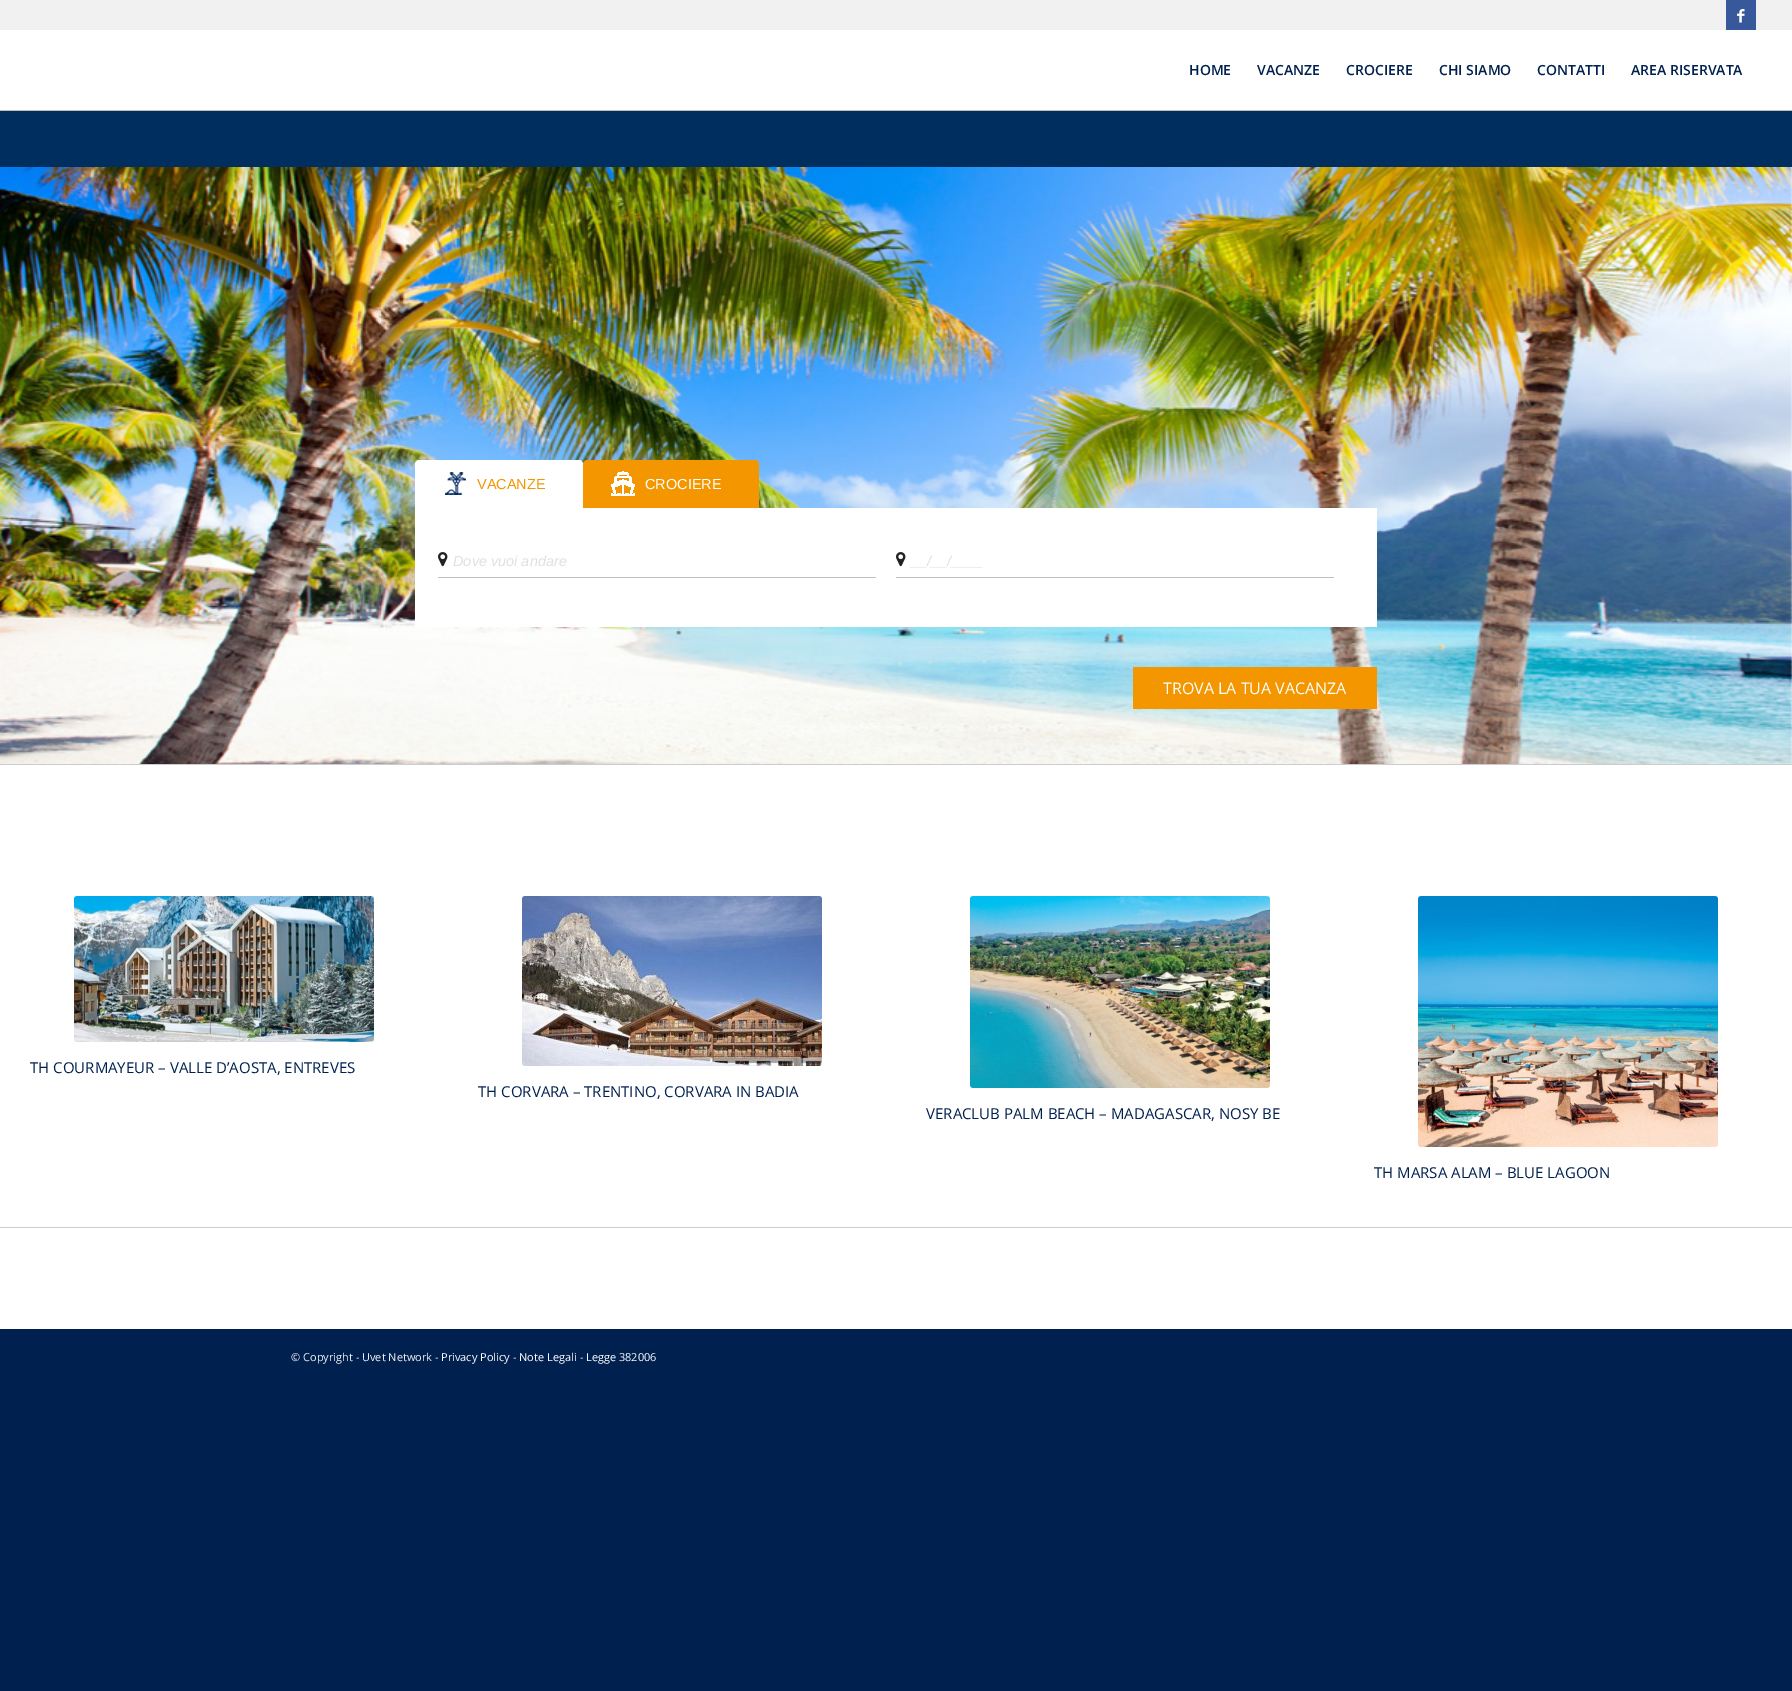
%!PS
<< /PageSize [1792 1691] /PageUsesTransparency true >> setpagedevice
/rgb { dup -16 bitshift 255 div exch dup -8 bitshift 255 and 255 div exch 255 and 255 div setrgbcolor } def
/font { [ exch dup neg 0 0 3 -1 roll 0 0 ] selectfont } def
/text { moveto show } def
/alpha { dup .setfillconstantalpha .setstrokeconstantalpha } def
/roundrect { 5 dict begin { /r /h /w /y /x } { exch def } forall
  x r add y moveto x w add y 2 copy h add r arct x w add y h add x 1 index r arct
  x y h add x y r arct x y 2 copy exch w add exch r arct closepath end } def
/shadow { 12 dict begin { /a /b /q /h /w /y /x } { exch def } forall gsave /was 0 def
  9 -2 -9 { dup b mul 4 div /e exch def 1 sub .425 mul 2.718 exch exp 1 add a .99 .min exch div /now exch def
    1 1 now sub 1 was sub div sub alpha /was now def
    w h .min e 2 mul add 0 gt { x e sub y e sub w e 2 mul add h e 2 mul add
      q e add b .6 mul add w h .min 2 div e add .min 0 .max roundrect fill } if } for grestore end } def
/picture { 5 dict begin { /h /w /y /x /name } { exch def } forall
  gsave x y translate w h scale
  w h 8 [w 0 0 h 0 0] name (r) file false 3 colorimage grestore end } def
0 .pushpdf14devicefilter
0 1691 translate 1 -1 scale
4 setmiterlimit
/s1 { /OpenSans-SemiBold 14 font 16#00204F rgb } def
/s2 { /LiberationSans-Regular 14.5 font 16#F39600 rgb } def
/s3 { /LiberationSans-Regular 14.5 font 16#FFFFFF rgb } def
/s4 { /LiberationSans-Italic 14.5 font 16#E0E0E0 rgb } def
/s5 { /OpenSans-Regular 16 font 16#FFFFFF rgb } def
/s6 { /OpenSans-Regular 15 font 16#00204F rgb } def
/s7 { /OpenSans-Regular 11 font 16#F1F1F1 rgb } def
/s8 { /OpenSans-Regular 11 font 16#FFFFFF rgb } def
16#00204F rgb
0 0 1792 1691 rectfill
16#FFFFFF rgb
0 30 1792 1299 rectfill
16#002E5F rgb
0 111 1792 56 rectfill
16#CCCCCC rgb
0 110 1792 1 rectfill
gsave
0 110 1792 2 rectclip
16#000000 rgb
-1 -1 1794 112 0 1 0.1 shadow
grestore
16#F1F1F1 rgb
0 0 1792 30 rectfill
16#37589B rgb
1726 0 30 30 rectfill
(pic1.raw) 1737 9 8 14 picture
s1
(HOME) 1189 75 text
(VACANZE) 1257 75 text
(CROCIERE) 1346 75 text
(CHI SIAMO) 1439 75 text
(CONTATTI) 1537 75 text
(AREA RISERVATA) 1631 75 text
(pic2.raw) 0 167 1792 597 picture
16#CCCCCC rgb
0 764 1792 1 rectfill
16#FFFFFF rgb
419 460 moveto 579 460 lineto 581 460 583 462 583 464 curveto 583 508 lineto 415 508 lineto 415 464 lineto 415 462 417 460 419 460 curveto closepath fill
(pic3.raw) 445 472 21 23 picture
s2
(VACANZE) 477 489 text
587 460 moveto 755 460 lineto 757 460 759 462 759 464 curveto 759 508 lineto 583 508 lineto 583 464 lineto 583 462 585 460 587 460 curveto closepath fill
(pic4.raw) 611 471 24 25 picture
s3
(CROCIERE) 645 489 text
415 508 962 119 rectfill
(pic5.raw) 438 552 10 15 picture
16#C0C0C0 rgb
438 577 438 1 rectfill
s4
(Dove vuoi andare) 453 566 text
(pic5.raw) 896 552 10 15 picture
16#C0C0C0 rgb
896 577 438 1 rectfill
s4
(__/__/____) 911 566 text
16#F39600 rgb
1133 667 244 42 rectfill
s5
(TROVA LA TUA VACANZA) 1163 694 text
(pic6.raw) 74 896 300 146 picture
s6
(TH COURMAYEUR – VALLE D’AOSTA, ENTREVES) 30 1073 text
(pic7.raw) 522 896 300 170 picture
(TH CORVARA – TRENTINO, CORVARA IN BADIA) 478 1097 text
(pic8.raw) 970 896 300 192 picture
(VERACLUB PALM BEACH – MADAGASCAR, NOSY BE) 926 1119 text
(pic9.raw) 1418 896 300 251 picture
(TH MARSA ALAM – BLUE LAGOON) 1374 1178 text
16#CCCCCC rgb
0 1227 1792 1 rectfill
s7
(© Copyright - Uvet Network -) 291 1361 text
s8
(Privacy Policy) 441 1361 text
s7
(-) 513 1361 text
s8
(Note Legali) 519 1361 text
s7
(-) 580 1361 text
s8
(Legge 382006) 586 1361 text
.poppdf14devicefilter showpage
